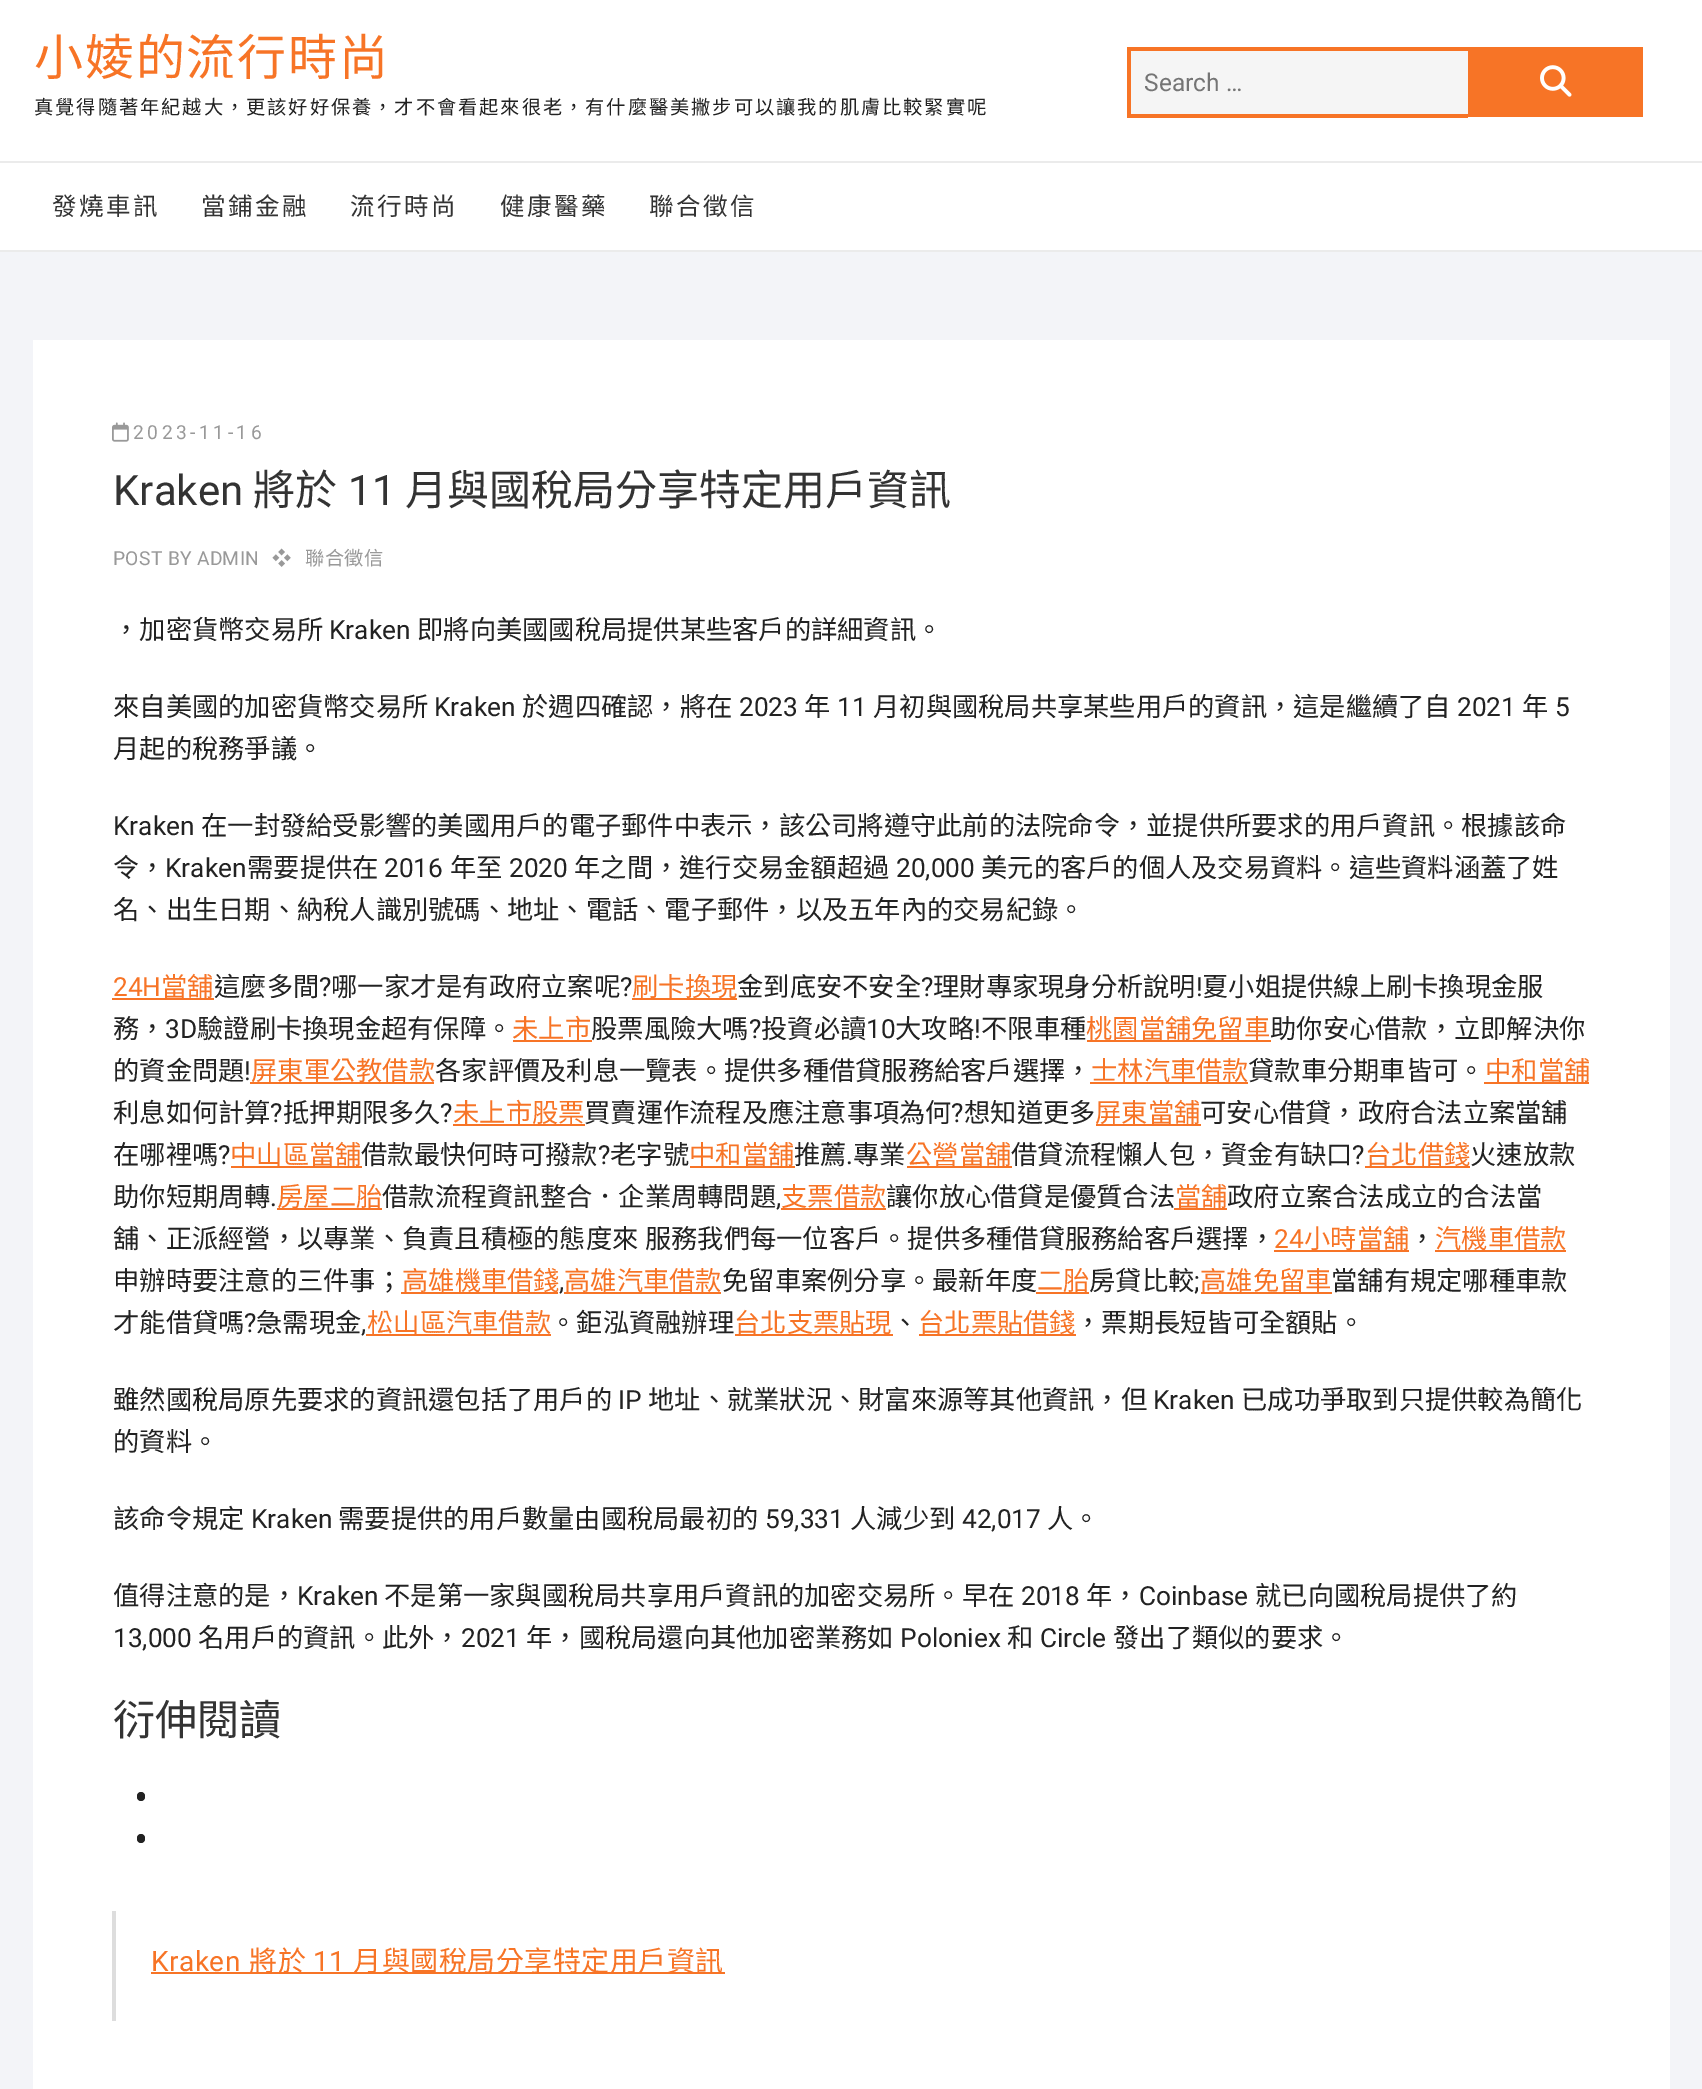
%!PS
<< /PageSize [1702 2089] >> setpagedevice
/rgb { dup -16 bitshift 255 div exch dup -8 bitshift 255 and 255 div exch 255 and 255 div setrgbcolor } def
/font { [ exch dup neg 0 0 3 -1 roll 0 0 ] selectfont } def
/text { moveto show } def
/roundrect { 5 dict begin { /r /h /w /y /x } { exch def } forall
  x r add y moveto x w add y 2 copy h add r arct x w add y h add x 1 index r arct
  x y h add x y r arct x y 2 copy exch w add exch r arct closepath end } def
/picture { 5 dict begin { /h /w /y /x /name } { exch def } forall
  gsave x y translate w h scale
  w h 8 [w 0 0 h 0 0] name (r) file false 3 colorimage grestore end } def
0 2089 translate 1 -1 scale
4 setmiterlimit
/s1 { /Roboto-Regular 24.5 font 16#757575 rgb } def
/s2 { /Roboto-Regular 42 font 16#333333 rgb } def
/s3 { /NotoSansCJKTC-Regular 42 font 16#333333 rgb } def
/s4 { /NotoSansCJKTC-Regular 26.25 font 16#222222 rgb } def
/s5 { /Roboto-Regular 26.25 font 16#222222 rgb } def
/s6 { /Roboto-Regular 26.25 font 16#F77426 rgb } def
/s7 { /NotoSansCJKTC-Regular 26.25 font 16#F77426 rgb } def
16#F3F4F8 rgb
0 0 1702 2089 rectfill
16#FFFFFF rgb
0 0 1702 250 rectfill
/NotoSansCJKTC-Regular 49 font
16#F77426 rgb
34 75 moveto 1.75 0 (小婈的流行時尚) ashow
/NotoSansCJKTC-Regular 19.25 font
16#222222 rgb
34 114 moveto 1.95 0 (真覺得隨著年紀越大，更該好好保養，才不會看起來很老，有什麼醫美撇步可以讓我的肌膚比較緊實呢) ashow
16#F5F5F5 rgb
1131 51 337 63 rectfill
16#F77426 rgb
1127 47 341 4 rectfill
1127 114 341 4 rectfill
1127 47 4 70 rectfill
s1
(Search …) 1144 91 text
16#F77426 rgb
1468 47 175 70 rectfill
(pic1.raw) 1540 65 32 32 picture
16#EBEBEB rgb
0 161 1702 2 rectfill
0 250 1702 2 rectfill
/NotoSansCJKTC-Regular 24.5 font
16#333333 rgb
52 215 moveto 2.5 0 (發燒車訊) ashow
201 215 moveto 2.5 0 (當鋪金融) ashow
350 215 moveto 2.5 0 (流行時尚) ashow
500 215 moveto 2.5 0 (健康醫藥) ashow
649 215 moveto 2.5 0 (聯合徵信) ashow
16#FFFFFF rgb
33 340 1637 1749 rectfill
(pic2.raw) 112 422 17 20 picture
/Roboto-Regular 19.25 font
16#999999 rgb
133 439 moveto 3.5 0 (2023-11-16) ashow
s2
(Kraken) 113 505 text
s3
(將於) 253 505 text
s2
(11) 348 505 text
s3
(月與國稅局分享特定用戶資訊) 405 505 text
/Roboto-Regular 19.25 font
16#999999 rgb
113 565 moveto 0.3 0 (POST BY ADMIN) ashow
/NotoSansCJKTC-Regular 19.25 font
272 565 moveto 0.3 0 (❖) ashow
305 565 moveto 0.3 0 (聯合徵信) ashow
s4
(，加密貨幣交易所) 113 639 text
s5
(Kraken) 329 639 text
s4
(即將向美國國稅局提供某些客戶的詳細資訊。) 417 639 text
(來自美國的加密貨幣交易所) 113 716 text
s5
(Kraken) 434 716 text
s4
(於週四確認，將在) 522 716 text
s5
(2023) 739 716 text
s4
(年) 804 716 text
s5
(11) 837 716 text
s4
(月初與國稅局共享某些用戶的資訊，這是繼續了自) 873 716 text
s5
(2021) 1457 716 text
s4
(年) 1522 716 text
s5
(5) 1555 716 text
s4
(月起的稅務爭議。) 113 758 text
s5
(Kraken) 113 835 text
s4
(在一封發給受影響的美國用戶的電子郵件中表示，該公司將遵守此前的法院命令，並提供所要求的用戶資訊。根據該命) 201 835 text
(令，) 113 877 text
s5
(Kraken) 165 877 text
s4
(需要提供在) 247 877 text
s5
(2016) 384 877 text
s4
(年至) 450 877 text
s5
(2020) 509 877 text
s4
(年之間，進行交易金額超過) 574 877 text
s5
(20,000) 896 877 text
s4
(美元的客戶的個人及交易資料。這些資料涵蓋了姓) 981 877 text
(名、出生日期、納稅人識別號碼、地址、電話、電子郵件，以及五年內的交易紀錄。) 113 919 text
s6
(24H) 113 996 text
112 998 102 2 rectfill
s7
(當舖) 161 996 text
s4
(這麼多間) 214 996 text
s5
(?) 319 996 text
s4
(哪一家才是有政府立案呢) 331 996 text
s5
(?) 620 996 text
16#F77426 rgb
632 998 105 2 rectfill
s7
(刷卡換現) 632 996 text
s4
(金到底安不安全) 737 996 text
s5
(?) 921 996 text
s4
(理財專家現身分析說明) 933 996 text
s5
(!) 1196 996 text
s4
(夏小姐提供線上刷卡換現金服) 1202 996 text
(務，) 113 1038 text
s5
(3D) 165 1038 text
s4
(驗證刷卡換現金超有保障。) 197 1038 text
16#F77426 rgb
513 1040 79 2 rectfill
(未上市) 512 1038 text
s4
(股票風險大嗎) 591 1038 text
s5
(?) 749 1038 text
s4
(投資必讀) 761 1038 text
s5
(10) 866 1038 text
s4
(大攻略) 895 1038 text
s5
(!) 974 1038 text
s4
(不限車種) 981 1038 text
16#F77426 rgb
1087 1040 184 2 rectfill
(桃園當舖免留車) 1086 1038 text
s4
(助你安心借款，立即解決你) 1270 1038 text
(的資金問題) 113 1080 text
s5
(!) 244 1080 text
16#F77426 rgb
250 1082 184 2 rectfill
s7
(屏東軍公教借款) 251 1080 text
s4
(各家評價及利息一覽表。提供多種借貸服務給客戶選擇，) 435 1080 text
16#F77426 rgb
1090 1082 158 2 rectfill
(士林汽車借款) 1091 1080 text
s4
(貸款車分期車皆可。) 1248 1080 text
16#F77426 rgb
1484 1082 105 2 rectfill
(中和當舖) 1485 1080 text
s4
(利息如何計算) 113 1122 text
s5
(?) 270 1122 text
s4
(抵押期限多久) 283 1122 text
s5
(?) 440 1122 text
16#F77426 rgb
453 1124 132 2 rectfill
s7
(未上市股票) 453 1122 text
s4
(買賣運作流程及應注意事項為何) 584 1122 text
s5
(?) 951 1122 text
s4
(想知道更多) 964 1122 text
16#F77426 rgb
1096 1124 105 2 rectfill
(屏東當舖) 1095 1122 text
s4
(可安心借貸，政府合法立案當舖) 1200 1122 text
(在哪裡嗎) 113 1164 text
s5
(?) 218 1164 text
16#F77426 rgb
231 1166 131 2 rectfill
s7
(中山區當舖) 230 1164 text
s4
(借款最快何時可撥款) 361 1164 text
s5
(?) 598 1164 text
s4
(老字號) 610 1164 text
16#F77426 rgb
690 1166 105 2 rectfill
(中和當舖) 689 1164 text
s4
(推薦) 794 1164 text
s5
(.) 846 1164 text
s4
(專業) 853 1164 text
16#F77426 rgb
907 1166 105 2 rectfill
(公營當舖) 906 1164 text
s4
(借貸流程懶人包，資金有缺口) 1011 1164 text
s5
(?) 1352 1164 text
16#F77426 rgb
1365 1166 105 2 rectfill
s7
(台北借錢) 1365 1164 text
s4
(火速放款) 1470 1164 text
(助你短期周轉) 113 1206 text
s5
(.) 270 1206 text
16#F77426 rgb
277 1208 105 2 rectfill
s7
(房屋二胎) 277 1206 text
s4
(借款流程資訊整合．企業周轉問題) 382 1206 text
s5
(,) 776 1206 text
16#F77426 rgb
781 1208 105 2 rectfill
s7
(支票借款) 781 1206 text
s4
(讓你放心借貸是優質合法) 886 1206 text
16#F77426 rgb
1174 1208 53 2 rectfill
(當舖) 1175 1206 text
s4
(政府立案合法成立的合法當) 1227 1206 text
113 1248 moveto 1 0 32 (舖、正派經營，以專業、負責且積極的態度來 服務我們每一位客戶。提供多種借貸服務給客戶選擇，) widthshow
s6
(24) 1274 1248 text
1274 1250 135 2 rectfill
s7
(小時當舖) 1304 1248 text
s4
(，) 1409 1248 text
16#F77426 rgb
1435 1250 131 2 rectfill
(汽機車借款) 1435 1248 text
s4
(申辦時要注意的三件事；) 113 1290 text
16#F77426 rgb
401 1292 157 2 rectfill
(高雄機車借錢) 402 1290 text
s5
(,) 559 1290 text
16#F77426 rgb
564 1292 157 2 rectfill
s7
(高雄汽車借款) 564 1290 text
s4
(免留車案例分享。最新年度) 722 1290 text
16#F77426 rgb
1036 1292 53 2 rectfill
(二胎) 1037 1290 text
s4
(房貸比較) 1089 1290 text
s5
(;) 1194 1290 text
16#F77426 rgb
1201 1292 131 2 rectfill
s7
(高雄免留車) 1200 1290 text
s4
(當舖有規定哪種車款) 1331 1290 text
(才能借貸嗎) 113 1332 text
s5
(?) 244 1332 text
s4
(急需現金) 256 1332 text
16#F77426 rgb
366 1334 185 2 rectfill
(松山區汽車借款) 367 1332 text
s4
(。鉅泓資融辦理) 550 1332 text
16#F77426 rgb
735 1334 158 2 rectfill
(台北支票貼現) 734 1332 text
s4
(、) 892 1332 text
16#F77426 rgb
919 1334 157 2 rectfill
(台北票貼借錢) 918 1332 text
s4
(，票期長短皆可全額貼。) 1075 1332 text
s5
(,) 361 1332 text
s4
(雖然國稅局原先要求的資訊還包括了用戶的) 113 1409 text
s5
(IP) 618 1409 text
s4
(地址、就業狀況、財富來源等其他資訊，但) 648 1409 text
s5
(Kraken) 1153 1409 text
s4
(已成功爭取到只提供較為簡化) 1241 1409 text
(的資料。) 113 1451 text
(該命令規定) 113 1528 text
s5
(Kraken) 251 1528 text
s4
(需要提供的用戶數量由國稅局最初的) 338 1528 text
s5
(59,331) 765 1528 text
s4
(人減少到) 850 1528 text
s5
(42,017) 962 1528 text
s4
(人。) 1047 1528 text
(值得注意的是，) 113 1605 text
s5
(Kraken) 297 1605 text
s4
(不是第一家與國稅局共享用戶資訊的加密交易所。早在) 384 1605 text
s5
(2018) 1021 1605 text
s4
(年，) 1086 1605 text
s5
(Coinbase) 1139 1605 text
s4
(就已向國稅局提供了約) 1255 1605 text
s5
(13,000) 113 1647 text
s4
(名用戶的資訊。此外，) 198 1647 text
s5
(2021) 461 1647 text
s4
(年，國稅局還向其他加密業務如) 526 1647 text
s5
(Poloniex) 900 1647 text
s4
(和) 1007 1647 text
s5
(Circle) 1040 1647 text
s4
(發出了類似的要求。) 1113 1647 text
s3
(衍伸閱讀) 113 1735 text
16#222222 rgb
137 1792 8 9 4 roundrect fill
137 1834 8 9 4 roundrect fill
16#DDDDDD rgb
112 1911 4 110 rectfill
/Roboto-Regular 28 font
16#F77426 rgb
151 1971 moveto 0.5 0 (Kraken) ashow
151 1972 574 2 rectfill
/NotoSansCJKTC-Regular 28 font
249 1971 moveto 0.5 0 (將於) ashow
/Roboto-Regular 28 font
313 1971 moveto 0.5 0 (11) ashow
/NotoSansCJKTC-Regular 28 font
353 1971 moveto 0.5 0 (月與國稅局分享特定用戶資訊) ashow
showpage
